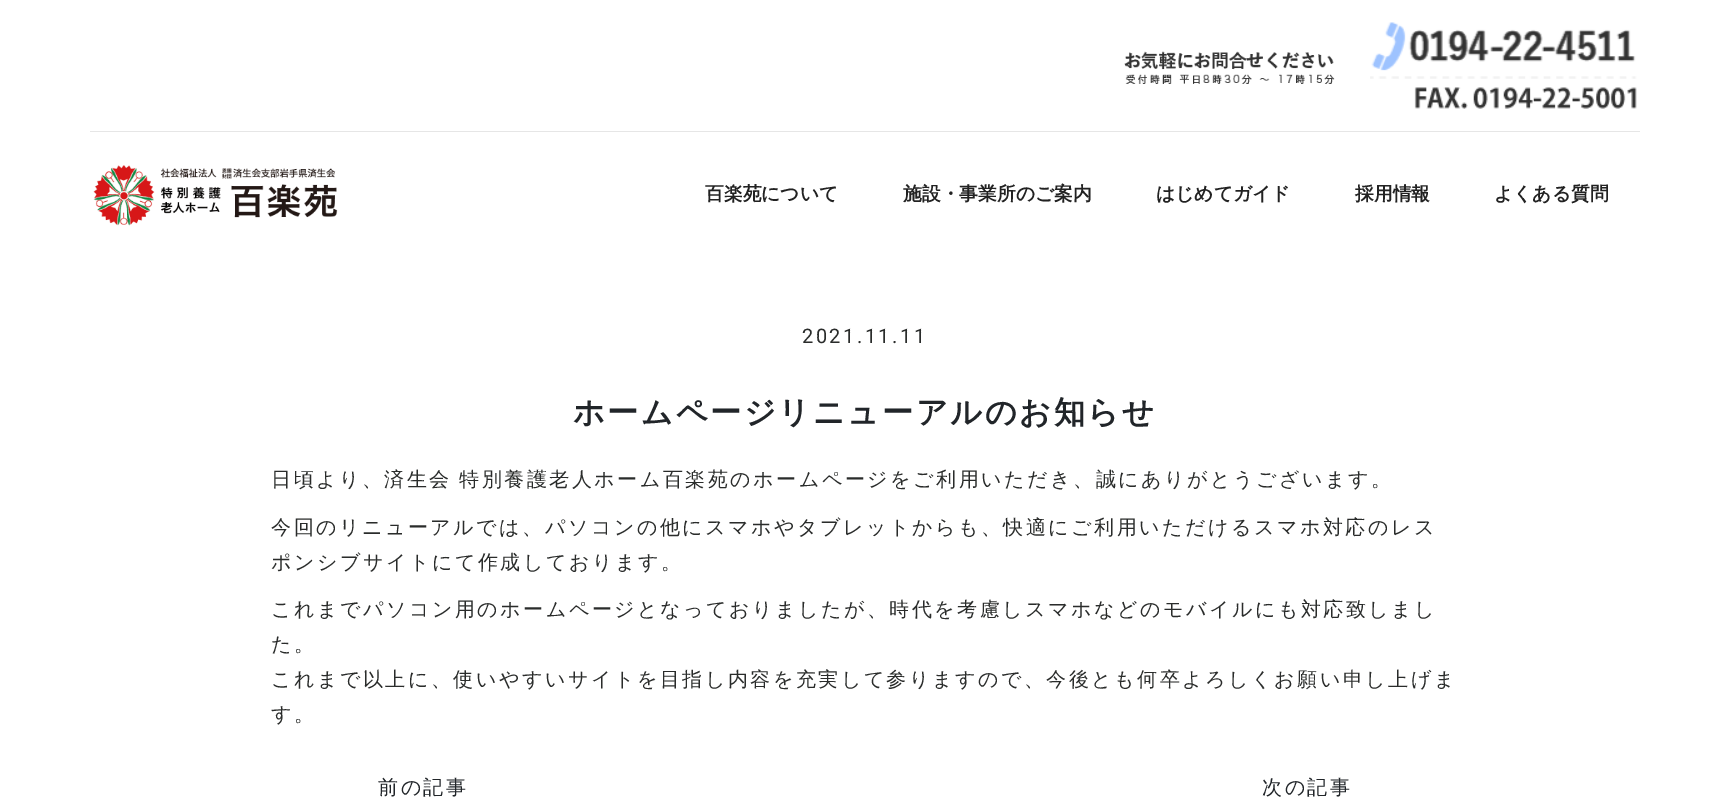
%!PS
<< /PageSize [1730 799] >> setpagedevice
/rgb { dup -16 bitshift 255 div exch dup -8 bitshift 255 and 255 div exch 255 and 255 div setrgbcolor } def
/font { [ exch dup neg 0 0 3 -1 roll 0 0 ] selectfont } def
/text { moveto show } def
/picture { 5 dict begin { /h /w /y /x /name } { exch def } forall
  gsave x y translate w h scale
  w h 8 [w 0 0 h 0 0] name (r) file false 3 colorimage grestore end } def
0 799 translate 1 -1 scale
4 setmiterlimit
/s1 { /WenQuanYiZenHei-Bold 18.75 font 16#222222 rgb } def
16#FFFFFF rgb
0 0 1730 799 rectfill
16#E6E6E6 rgb
90 131 1550 1 rectfill
(pic1.raw) 1124 51 211 33 picture
(pic2.raw) 1370 22 267 87 picture
(pic3.raw) 93 165 245 61 picture
s1
(百楽苑について) 705 200 text
(施設・事業所のご案内) 903 200 text
(はじめてガイド) 1156 200 text
(採用情報) 1355 200 text
(よくある質問) 1494 200 text
/Roboto-Regular 20 font
16#2A2C2B rgb
802 343 moveto 2.5 0 (2021.11.11) ashow
/WenQuanYiZenHei-Bold 31.25 font
16#212529 rgb
573 423 moveto 2.5 0 (ホームページリニューアルのお知らせ) ashow
/WenQuanYiZenHei-Medium 20 font
16#2A2C2B rgb
271 486 moveto -1 0 32 2.5 0 (日頃より、済生会 特別養護老人ホーム百楽苑のホームページをご利用いただき、誠にありがとうございます。) awidthshow
271 534 moveto 2.5 0 (今回のリニューアルでは、パソコンの他にスマホやタブレットからも、快適にご利用いただけるスマホ対応のレス) ashow
271 569 moveto 2.5 0 (ポンシブサイトにて作成しております。) ashow
271 616 moveto 2.5 0 (これまでパソコン用のホームページとなっておりましたが、時代を考慮しスマホなどのモバイルにも対応致しまし) ashow
271 651 moveto 2.5 0 (た。) ashow
271 686 moveto 2.5 0 (これまで以上に、使いやすいサイトを目指し内容を充実して参りますので、今後とも何卒よろしくお願い申し上げま) ashow
271 721 moveto 2.5 0 (す。) ashow
16#212529 rgb
378 794 moveto 2.5 0 (前の記事) ashow
1262 794 moveto 2.5 0 (次の記事) ashow
showpage
